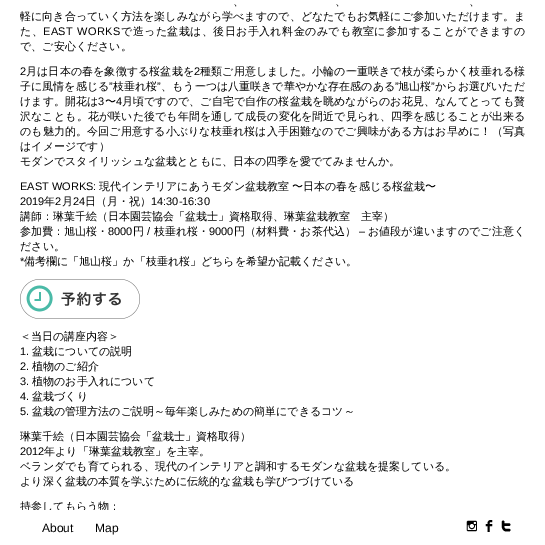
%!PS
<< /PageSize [545 545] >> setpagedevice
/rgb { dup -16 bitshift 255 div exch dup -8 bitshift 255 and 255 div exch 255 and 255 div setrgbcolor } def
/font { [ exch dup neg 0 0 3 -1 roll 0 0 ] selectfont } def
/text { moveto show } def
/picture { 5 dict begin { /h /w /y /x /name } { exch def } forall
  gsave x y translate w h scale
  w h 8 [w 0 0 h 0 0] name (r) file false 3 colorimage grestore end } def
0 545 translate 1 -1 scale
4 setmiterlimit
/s1 { /WenQuanYiZenHei-Medium 11 font 16#000000 rgb } def
/s2 { /LiberationSans-Regular 11 font 16#000000 rgb } def
/s3 { /LiberationSans-Regular 12 font 16#000000 rgb } def
16#FFFFFF rgb
0 0 545 545 rectfill
s1
(、) 233 5 text
(、) 335 5 text
(、) 469 5 text
20 20 moveto 0.05 0 (軽に向き合っていく方法を楽しみながら学べますので、どなたでもお気軽にご参加いただけます。ま) ashow
20 35 moveto 0.4 0 (た、) ashow
/LiberationSans-Regular 11 font
43 35 moveto 0.4 0 (EAST WORKS) ashow
/WenQuanYiZenHei-Medium 11 font
121 35 moveto 0.4 0 (で造った盆栽は、後日お手入れ料金のみでも教室に参加することができますの) ashow
(で、ご安心ください。) 20 50 text
/LiberationSans-Regular 11 font
20 75 moveto 0.1 0 (2) ashow
/WenQuanYiZenHei-Medium 11 font
26 75 moveto 0.1 0 (月は日本の春を象徴する桜盆栽を) ashow
/LiberationSans-Regular 11 font
194 75 moveto 0.1 0 (2) ashow
/WenQuanYiZenHei-Medium 11 font
200 75 moveto 0.1 0 (種類ご用意しました。小輪の一重咲きで枝が柔らかく枝垂れる様) ashow
(子に風情を感じる) 20 90 text
s2
(”) 109 90 text
s1
(枝垂れ桜) 113 90 text
s2
(”) 157 90 text
s1
(、もう一つは八重咲きで華やかな存在感のある) 161 90 text
s2
(”) 395 90 text
s1
(旭山桜) 398 90 text
s2
(”) 431 90 text
s1
(からお選びいただ) 435 90 text
20 105 moveto 0.05 0 (けます。開花は) ashow
/LiberationSans-Regular 11 font
98 105 moveto 0.05 0 (3) ashow
/WenQuanYiZenHei-Medium 11 font
105 105 moveto 0.05 0 (〜) ashow
/LiberationSans-Regular 11 font
116 105 moveto 0.05 0 (4) ashow
/WenQuanYiZenHei-Medium 11 font
122 105 moveto 0.05 0 (月頃ですので、ご自宅で自作の桜盆栽を眺めながらのお花見、なんてとっても贅) ashow
20 120 moveto 0.1 0 (沢なことも。花が咲いた後でも年間を通して成長の変化を間近で見られ、四季を感じることが出来る) ashow
20 135 moveto 0.1 0 (のも魅力的。今回ご用意する小ぶりな枝垂れ桜は入手困難なのでご興味がある方はお早めに！（写真) ashow
(はイメージです）) 20 150 text
(モダンでスタイリッシュな盆栽とともに、日本の四季を愛でてみませんか。) 20 165 text
s2
(EAST WORKS:) 20 190 text
s1
(現代インテリアにあうモダン盆栽教室 〜日本の春を感じる桜盆栽〜) 99 190 text
s2
(2019) 20 205 text
s1
(年) 44 205 text
s2
(2) 55 205 text
s1
(月) 62 205 text
s2
(24) 73 205 text
s1
(日（月・祝）) 85 205 text
s2
(14:30-16:30) 151 205 text
s1
(講師：琳葉千絵（日本園芸協会「盆栽士」資格取得、琳葉盆栽教室　主宰）) 20 220 text
20 235 moveto 0.05 0 (参加費：旭山桜・) ashow
/LiberationSans-Regular 11 font
108 235 moveto 0.05 0 (8000) ashow
/WenQuanYiZenHei-Medium 11 font
133 235 moveto 0.05 0 (円) ashow
/LiberationSans-Regular 11 font
147 235 moveto 0.05 0 (/) ashow
/WenQuanYiZenHei-Medium 11 font
154 235 moveto 0.05 0 (枝垂れ桜・) ashow
/LiberationSans-Regular 11 font
209 235 moveto 0.05 0 (9000) ashow
/WenQuanYiZenHei-Medium 11 font
234 235 moveto 0.05 0 (円（材料費・お茶代込）) ashow
/LiberationSans-Regular 11 font
359 235 moveto 0.05 0 (–) ashow
/WenQuanYiZenHei-Medium 11 font
368 235 moveto 0.05 0 (お値段が違いますのでご注意く) ashow
(ださい。) 20 250 text
s2
(*) 20 265 text
s1
(備考欄に「旭山桜」か「枝垂れ桜」どちらを希望か記載ください。) 24 265 text
(pic1.raw) 20 279 120 40 picture
(＜当日の講座内容＞) 20 340 text
s2
(1.) 20 355 text
s1
(盆栽についての説明) 32 355 text
s2
(2.) 20 370 text
s1
(植物のご紹介) 32 370 text
s2
(3.) 20 385 text
s1
(植物のお手入れについて) 32 385 text
s2
(4.) 20 400 text
s1
(盆栽づくり) 32 400 text
s2
(5.) 20 415 text
s1
(盆栽の管理方法のご説明～毎年楽しみための簡単にできるコツ～) 32 415 text
(琳葉千絵（日本園芸協会「盆栽士」資格取得）) 20 440 text
s2
(2012) 20 455 text
s1
(年より「琳葉盆栽教室」を主宰。) 44 455 text
(ベランダでも育てられる、現代のインテリアと調和するモダンな盆栽を提案している。) 20 470 text
(より深く盆栽の本質を学ぶために伝統的な盆栽も学びつづけている) 20 485 text
(持参してもらう物：) 20 510 text
16#FFFFFF rgb
20 510 89 3 rectfill
s3
(About) 42 532 text
(Map) 95 532 text
(pic2.raw) 466 520 11 12 picture
(pic3.raw) 485 520 8 12 picture
(pic4.raw) 501 520 10 12 picture
showpage
